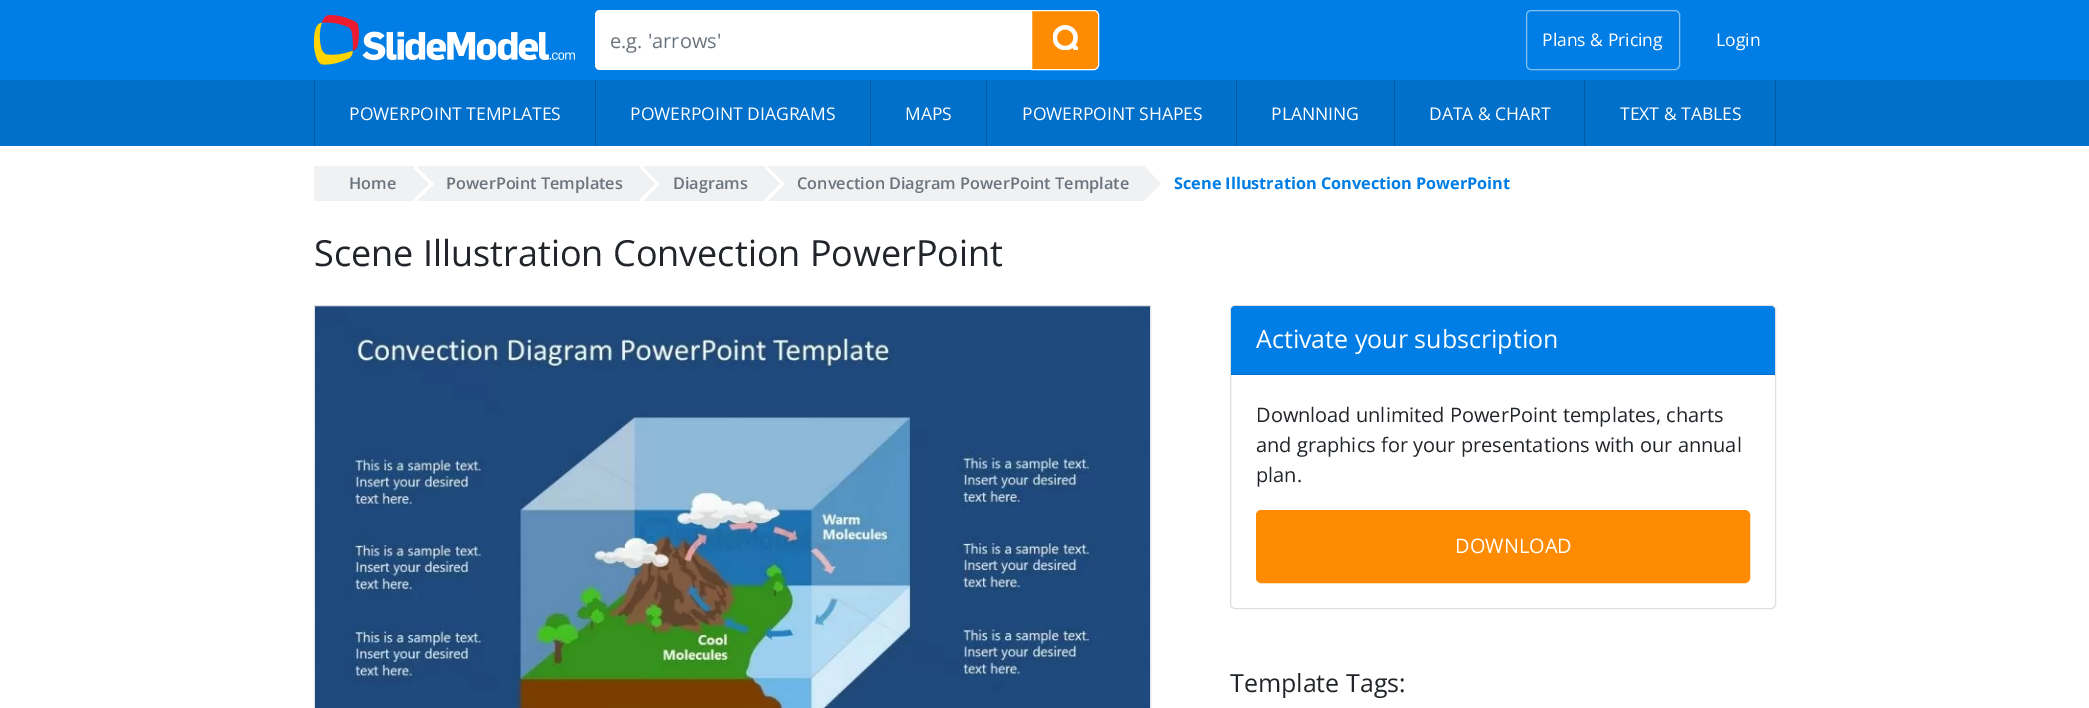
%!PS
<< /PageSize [2089 708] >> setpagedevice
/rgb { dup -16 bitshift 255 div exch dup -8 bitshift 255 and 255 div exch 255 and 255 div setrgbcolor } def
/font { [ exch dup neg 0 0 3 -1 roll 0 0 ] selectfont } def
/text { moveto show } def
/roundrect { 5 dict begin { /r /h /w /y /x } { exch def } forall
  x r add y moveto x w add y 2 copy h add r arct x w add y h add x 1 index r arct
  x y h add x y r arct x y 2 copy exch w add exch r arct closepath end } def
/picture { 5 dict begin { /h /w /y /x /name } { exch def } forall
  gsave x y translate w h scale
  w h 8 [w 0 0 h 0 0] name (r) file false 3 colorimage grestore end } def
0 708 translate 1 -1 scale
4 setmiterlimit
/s1 { /OpenSans-Regular 20 font 16#6C757D rgb } def
/s2 { /OpenSans-Regular 17.5 font 16#FFFFFF rgb } def
/s3 { /OpenSans-SemiBold 16.25 font 16#6C757D rgb } def
/s4 { /OpenSans-Bold 16.25 font 16#007EE5 rgb } def
/s5 { /OpenSans-Regular 36 font 16#212529 rgb } def
/s6 { /OpenSans-Regular 25 font 16#FFFFFF rgb } def
/s7 { /OpenSans-Regular 20 font 16#212529 rgb } def
/s8 { /OpenSans-Regular 20 font 16#FFFFFF rgb } def
/s9 { /OpenSans-Regular 25 font 16#212529 rgb } def
16#FFFFFF rgb
0 0 2089 708 rectfill
16#007EE5 rgb
0 0 2089 80 rectfill
(pic1.raw) 314 15 261 50 picture
16#FFFFFF rgb
600 10 moveto 1033 10 lineto 1033 70 lineto 600 70 lineto 597 70 595 68 595 65 curveto 595 15 lineto 595 12 597 10 600 10 curveto closepath fill
s1
(e.g. 'arrows') 610 48 text
16#FF8B03 rgb
1031.5 10.5 moveto 1094 10.5 lineto 1096.5 10.5 1098.5 12.5 1098.5 15 curveto 1098.5 65 lineto 1098.5 67.5 1096.5 69.5 1094 69.5 curveto 1031.5 69.5 lineto closepath gsave fill grestore
16#FFFFFF rgb
stroke
(pic2.raw) 1053 25 25 25 picture
16#82C0F2 rgb
1526.5 10.5 153 59 4.5 roundrect stroke
s2
(Plans & Pricing) 1542 46 text
(Login) 1716 46 text
16#0070CB rgb
0 80 2089 66 rectfill
16#005AA2 rgb
314 80 1 66 rectfill
s2
(POWERPOINT TEMPLATES) 349 120 text
16#005AA2 rgb
595 80 1 66 rectfill
s2
(POWERPOINT DIAGRAMS) 630 120 text
16#005AA2 rgb
870 80 1 66 rectfill
s2
(MAPS) 905 120 text
16#005AA2 rgb
986 80 1 66 rectfill
s2
(POWERPOINT SHAPES) 1022 120 text
16#005AA2 rgb
1236 80 1 66 rectfill
s2
(PLANNING) 1271 120 text
16#005AA2 rgb
1394 80 1 66 rectfill
s2
(DATA & CHART) 1429 120 text
16#005AA2 rgb
1775 80 1 66 rectfill
1584 80 1 66 rectfill
s2
(TEXT & TABLES) 1620 120 text
16#EFF1F3 rgb
314 166 830 35 rectfill
16#FFFFFF rgb
414 204 moveto 414 164 lineto 434 184 lineto closepath fill
s3
(Home) 349 189 text
16#EFF1F3 rgb
411 201 moveto 411 166 lineto 429 184 lineto closepath fill
16#FFFFFF rgb
640 204 moveto 640 164 lineto 660 184 lineto closepath fill
s3
(PowerPoint Templates) 446 189 text
16#EFF1F3 rgb
637.5 201 moveto 637.5 166 lineto 655 184 lineto closepath fill
16#FFFFFF rgb
765 204 moveto 765 164 lineto 785 184 lineto closepath fill
s3
(Diagrams) 673 189 text
16#EFF1F3 rgb
762.5 201 moveto 762.5 166 lineto 780 184 lineto closepath fill
s3
(Convection Diagram PowerPoint Template) 797 189 text
16#EFF1F3 rgb
1144 201 moveto 1144 166 lineto 1161 184 lineto closepath fill
s4
(Scene Illustration Convection PowerPoint) 1174 189 text
s5
(Scene Illustration Convection PowerPoint) 314 266 text
16#DEE2E6 rgb
314.5 305.5 836 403 rectstroke
(pic3.raw) 315 306 835 402 picture
16#DFDFDF rgb
1230.5 305.5 545 303 4.5 roundrect stroke
16#007EE5 rgb
1235 306 moveto 1771 306 lineto 1773 306 1775 308 1775 310 curveto 1775 375 lineto 1231 375 lineto 1231 310 lineto 1231 308 1233 306 1235 306 curveto closepath fill
16#006EC8 rgb
1231 374 544 1 rectfill
s6
(Activate your subscription) 1256 348 text
s7
(Download unlimited PowerPoint templates, charts) 1256 422 text
(and graphics for your presentations with our annual) 1256 452 text
(plan.) 1256 482 text
16#FF8B03 rgb
1256.5 510.5 493 72 4.5 roundrect gsave fill grestore
stroke
s8
(DOWNLOAD) 1455 553 text
s9
(Template Tags:) 1230 692 text
showpage
